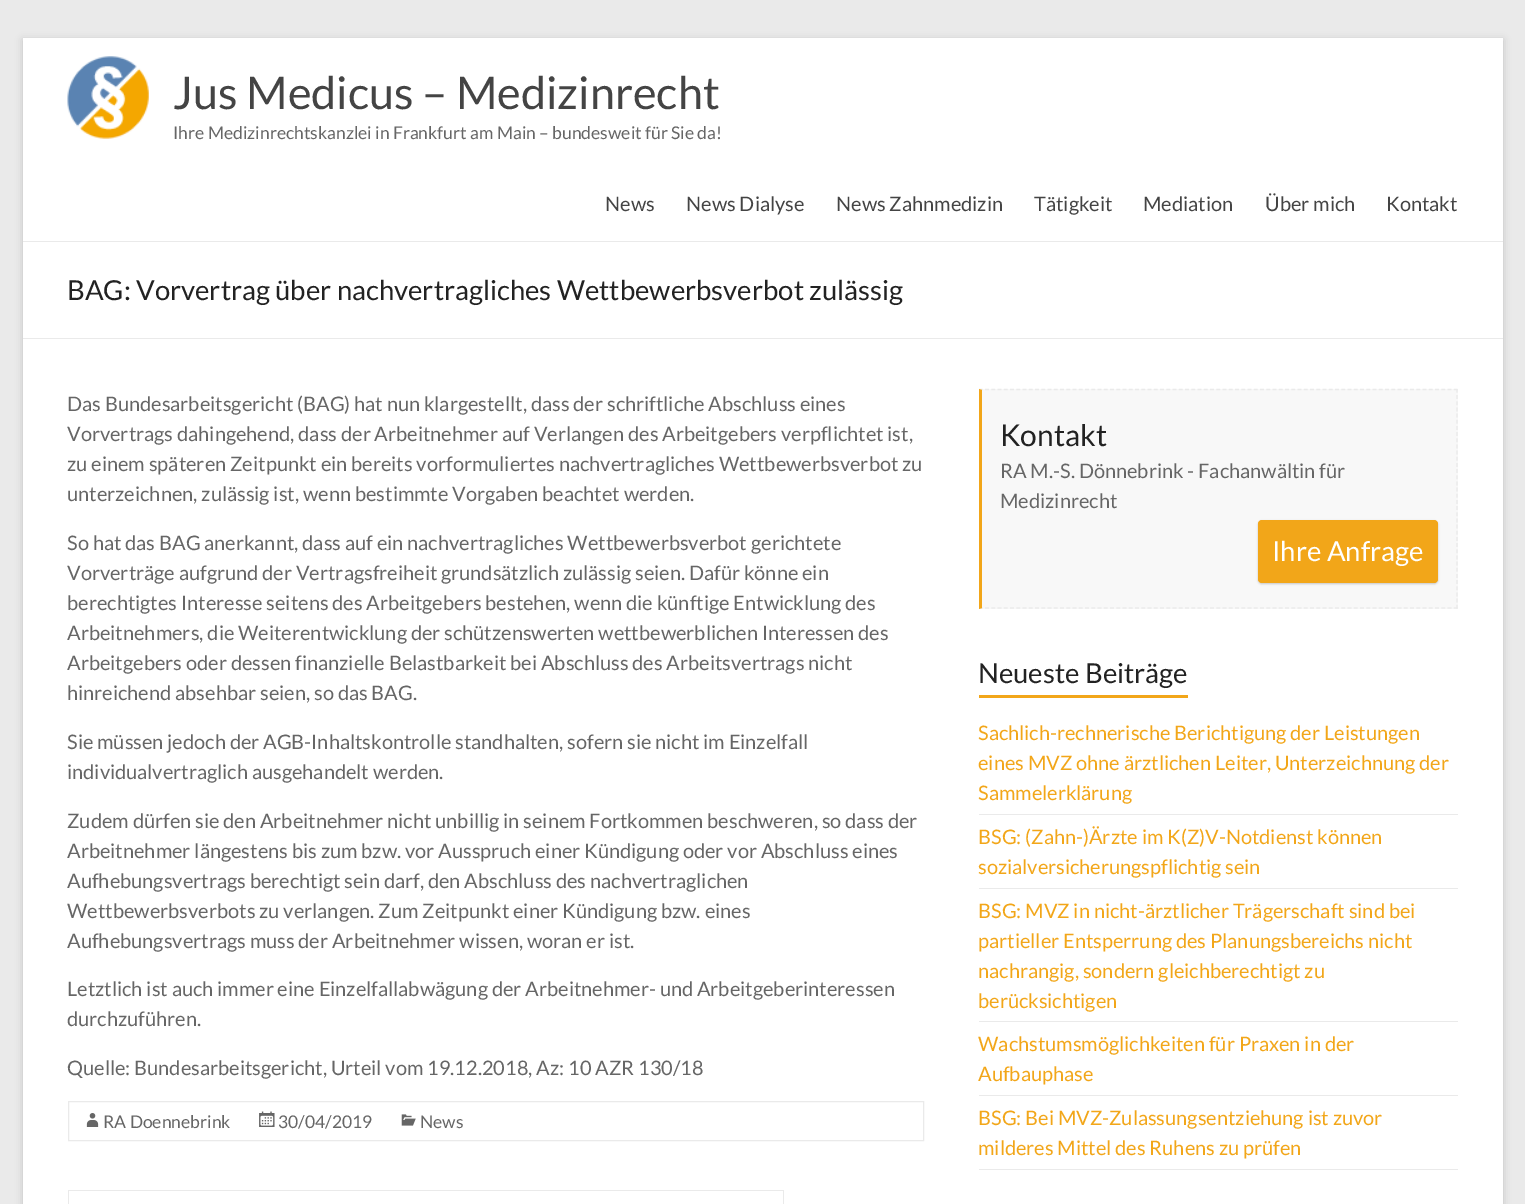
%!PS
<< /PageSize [1525 1204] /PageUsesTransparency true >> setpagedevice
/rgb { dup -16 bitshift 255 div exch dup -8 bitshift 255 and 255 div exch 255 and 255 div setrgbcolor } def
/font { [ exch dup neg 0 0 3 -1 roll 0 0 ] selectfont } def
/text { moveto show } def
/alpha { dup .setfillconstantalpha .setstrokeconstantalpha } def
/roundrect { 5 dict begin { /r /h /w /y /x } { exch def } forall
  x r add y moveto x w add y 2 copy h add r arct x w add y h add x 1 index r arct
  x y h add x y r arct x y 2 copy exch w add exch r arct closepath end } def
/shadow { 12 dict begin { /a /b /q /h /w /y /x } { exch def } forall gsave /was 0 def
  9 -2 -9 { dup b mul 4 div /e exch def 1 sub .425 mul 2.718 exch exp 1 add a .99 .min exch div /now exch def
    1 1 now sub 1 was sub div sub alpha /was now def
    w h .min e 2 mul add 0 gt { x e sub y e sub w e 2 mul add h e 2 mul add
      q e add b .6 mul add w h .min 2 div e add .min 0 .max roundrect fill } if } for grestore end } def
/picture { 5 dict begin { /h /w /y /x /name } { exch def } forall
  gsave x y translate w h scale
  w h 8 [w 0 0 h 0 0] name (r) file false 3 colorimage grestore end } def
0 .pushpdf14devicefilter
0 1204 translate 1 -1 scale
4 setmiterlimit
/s1 { /Lato-Regular 45 font 16#444444 rgb } def
/s2 { /Lato-Regular 17.5 font 16#666666 rgb } def
/s3 { /Lato-Regular 20 font 16#444444 rgb } def
/s4 { /Lato-Regular 27.5 font 16#222222 rgb } def
/s5 { /Lato-Regular 20 font 16#666666 rgb } def
/s6 { /Lato-Regular 30 font 16#222222 rgb } def
/s7 { /Lato-Regular 27.5 font 16#FFFFFF rgb } def
/s8 { /Lato-Regular 20 font 16#F2A619 rgb } def
16#EAEAEA rgb
0 0 1525 1204 rectfill
16#646464 rgb
23 40 1480 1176 0 4 0.3 shadow
16#FFFFFF rgb
23 38 1480 1166 rectfill
16#EAEAEA rgb
23 241 1480 1 rectfill
(pic1.raw) 67 56 82 83 picture
s1
(Jus Medicus – Medizinrecht) 173 109 text
s2
(Ihre Medizinrechtskanzlei in Frankfurt am Main – bundesweit für Sie da!) 173 139 text
s3
(News) 605 211 text
(News Dialyse) 686 211 text
(News Zahnmedizin) 836 211 text
(Tätigkeit) 1034 211 text
(Mediation) 1143 211 text
(Über mich) 1265 211 text
(Kontakt) 1386 211 text
16#EAEAEA rgb
23 338 1480 1 rectfill
s4
(BAG: Vorvertrag über nachvertragliches Wettbewerbsverbot zulässig) 67 300 text
s5
(Das Bundesarbeitsgericht \(BAG\) hat nun klargestellt, dass der schriftliche Abschluss eines) 67 411 text
(Vorvertrags dahingehend, dass der Arbeitnehmer auf Verlangen des Arbeitgebers verpflichtet ist,) 67 441 text
(zu einem späteren Zeitpunkt ein bereits vorformuliertes nachvertragliches Wettbewerbsverbot zu) 67 471 text
(unterzeichnen, zulässig ist, wenn bestimmte Vorgaben beachtet werden.) 67 501 text
(So hat das BAG anerkannt, dass auf ein nachvertragliches Wettbewerbsverbot gerichtete) 67 550 text
(Vorverträge aufgrund der Vertragsfreiheit grundsätzlich zulässig seien. Dafür könne ein) 67 580 text
(berechtigtes Interesse seitens des Arbeitgebers bestehen, wenn die künftige Entwicklung des) 67 610 text
(Arbeitnehmers, die Weiterentwicklung der schützenswerten wettbewerblichen Interessen des) 67 640 text
(Arbeitgebers oder dessen finanzielle Belastbarkeit bei Abschluss des Arbeitsvertrags nicht) 67 670 text
(hinreichend absehbar seien, so das BAG.) 67 700 text
(Sie müssen jedoch der AGB-Inhaltskontrolle standhalten, sofern sie nicht im Einzelfall) 67 749 text
(individualvertraglich ausgehandelt werden.) 67 779 text
(Zudem dürfen sie den Arbeitnehmer nicht unbillig in seinem Fortkommen beschweren, so dass der) 67 828 text
(Arbeitnehmer längestens bis zum bzw. vor Ausspruch einer Kündigung oder vor Abschluss eines) 67 858 text
(Aufhebungsvertrags berechtigt sein darf, den Abschluss des nachvertraglichen) 67 888 text
(Wettbewerbsverbots zu verlangen. Zum Zeitpunkt einer Kündigung bzw. eines) 67 918 text
(Aufhebungsvertrags muss der Arbeitnehmer wissen, woran er ist.) 67 948 text
(Letztlich ist auch immer eine Einzelfallabwägung der Arbeitnehmer- und Arbeitgeberinteressen) 67 996 text
(durchzuführen.) 67 1026 text
(Quelle: Bundesarbeitsgericht, Urteil vom 19.12.2018, Az: 10 AZR 130/18) 67 1075 text
16#EAEAEA rgb
68.5 1101.5 855 39 rectstroke
(pic2.raw) 86 1113 13 14 picture
s2
(RA Doennebrink) 103 1128 text
(pic3.raw) 259 1111 16 16 picture
(30/04/2019) 278 1128 text
(pic4.raw) 401 1114 15 12 picture
(News) 420 1128 text
16#EAEAEA rgb
68 1190 716 1 rectfill
68 1190 1 14 rectfill
783 1190 1 14 rectfill
16#F8F8F8 rgb
979 389 479 220 rectfill
16#EAEAEA rgb
1.2 setlinewidth
[3.75 2.5] 0 setdash
979 389.5 moveto 1457.5 389.5 lineto stroke
[3.75 2.42] 0 setdash
1457 389 moveto 1457 609 lineto stroke
[3.75 2.5] 0 setdash
979 608 moveto 1457.5 608 lineto stroke
16#F2A619 rgb
979 609 moveto 979 389 lineto 982 390 lineto 982 608 lineto closepath fill
s6
(Kontakt) 1000 446 text
s5
(RA M.-S. Dönnebrink - Fachanwältin für) 1000 478 text
(Medizinrecht) 1000 508 text
16#000000 rgb
1258 521 180 63 4 1 0.2 shadow
16#F2A619 rgb
1258 520 180 63 4 roundrect fill
s7
(Ihre Anfrage) 1272 561 text
s4
(Neueste Beiträge) 978 683 text
16#F2A619 rgb
979 695 209 3 rectfill
16#EAEAEA rgb
979 814 479 1 rectfill
s8
(Sachlich-rechnerische Berichtigung der Leistungen) 978 740 text
(eines MVZ ohne ärztlichen Leiter, Unterzeichnung der) 978 770 text
(Sammelerklärung) 978 800 text
16#EAEAEA rgb
979 888 479 1 rectfill
s8
(BSG: \(Zahn-\)Ärzte im K\(Z\)V-Notdienst können) 978 844 text
(sozialversicherungspflichtig sein) 978 874 text
16#EAEAEA rgb
979 1021 479 1 rectfill
s8
(BSG: MVZ in nicht-ärztlicher Trägerschaft sind bei) 978 918 text
(partieller Entsperrung des Planungsbereichs nicht) 978 948 text
(nachrangig, sondern gleichberechtigt zu) 978 978 text
(berücksichtigen) 978 1008 text
16#EAEAEA rgb
979 1095 479 1 rectfill
s8
(Wachstumsmöglichkeiten für Praxen in der) 978 1051 text
(Aufbauphase) 978 1081 text
16#EAEAEA rgb
979 1169 479 1 rectfill
s8
(BSG: Bei MVZ-Zulassungsentziehung ist zuvor) 978 1125 text
(milderes Mittel des Ruhens zu prüfen) 978 1155 text
.poppdf14devicefilter showpage
